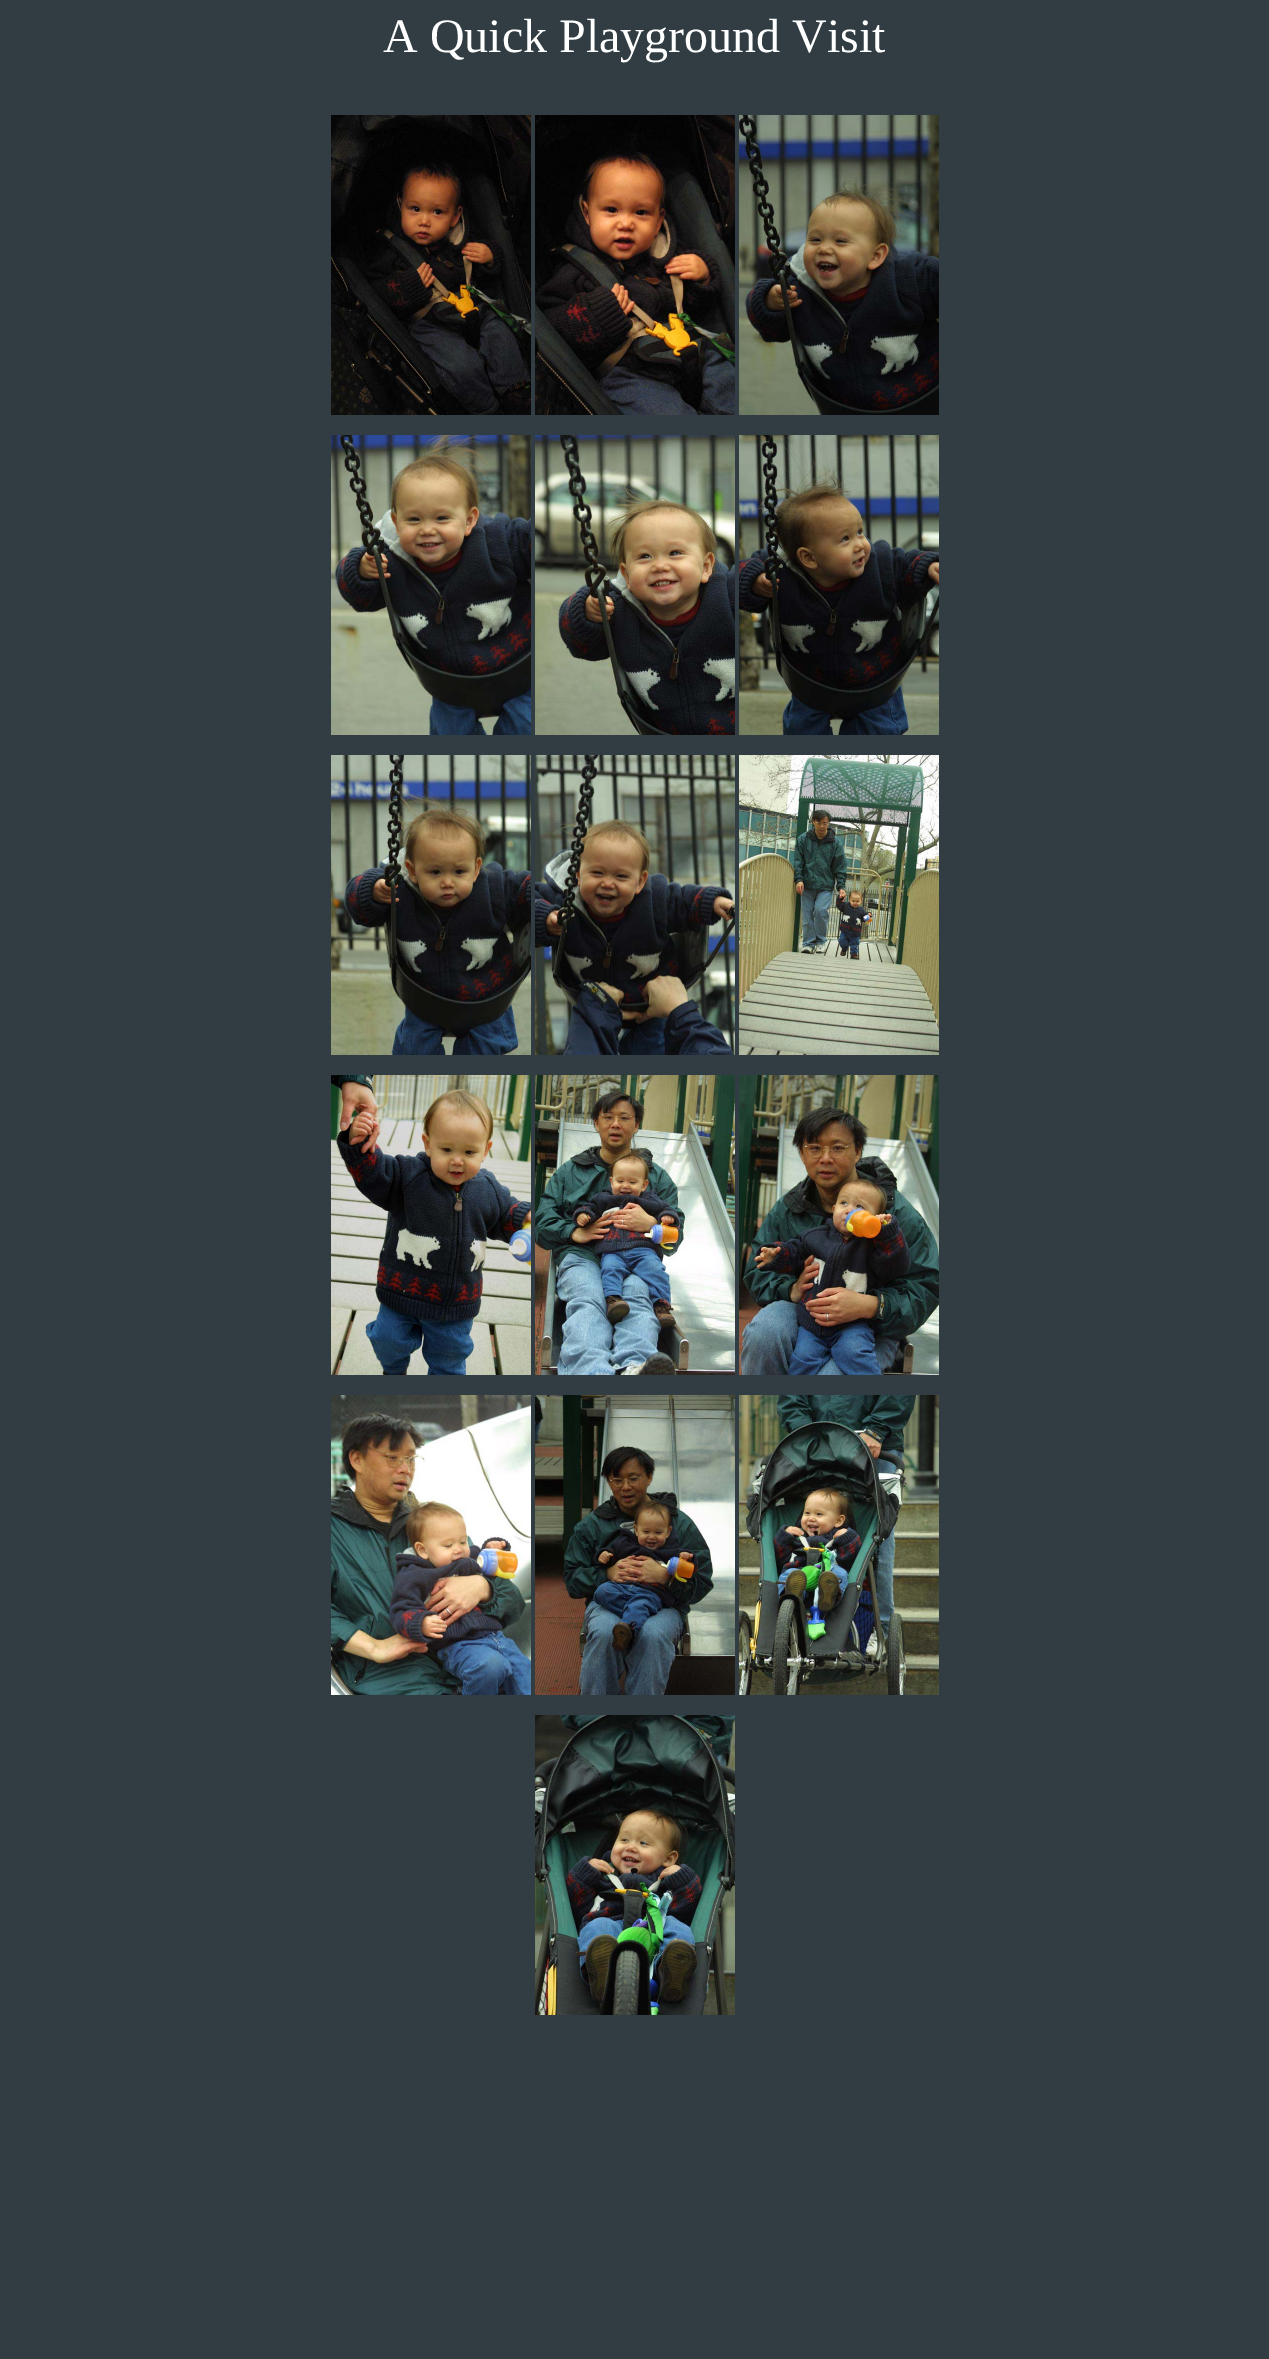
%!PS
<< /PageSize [1269 2359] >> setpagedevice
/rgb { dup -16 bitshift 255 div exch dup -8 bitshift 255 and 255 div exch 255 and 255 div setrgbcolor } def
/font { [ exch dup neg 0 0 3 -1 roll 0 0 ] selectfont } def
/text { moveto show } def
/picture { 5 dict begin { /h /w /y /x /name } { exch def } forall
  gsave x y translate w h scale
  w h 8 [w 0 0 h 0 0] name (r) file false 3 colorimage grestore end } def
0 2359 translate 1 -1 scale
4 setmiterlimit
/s1 { /LiberationSerif-Regular 48 font 16#FFFFFF rgb } def
16#313D42 rgb
0 0 1269 2359 rectfill
s1
(A Quick Playground Visit) 383 52 text
(pic1.raw) 331 115 200 300 picture
(pic2.raw) 535 115 200 300 picture
(pic3.raw) 739 115 200 300 picture
(pic4.raw) 331 435 200 300 picture
(pic5.raw) 535 435 200 300 picture
(pic6.raw) 739 435 200 300 picture
(pic7.raw) 331 755 200 300 picture
(pic8.raw) 535 755 200 300 picture
(pic9.raw) 739 755 200 300 picture
(pic10.raw) 331 1075 200 300 picture
(pic11.raw) 535 1075 200 300 picture
(pic12.raw) 739 1075 200 300 picture
(pic13.raw) 331 1395 200 300 picture
(pic14.raw) 535 1395 200 300 picture
(pic15.raw) 739 1395 200 300 picture
(pic16.raw) 535 1715 200 300 picture
showpage
